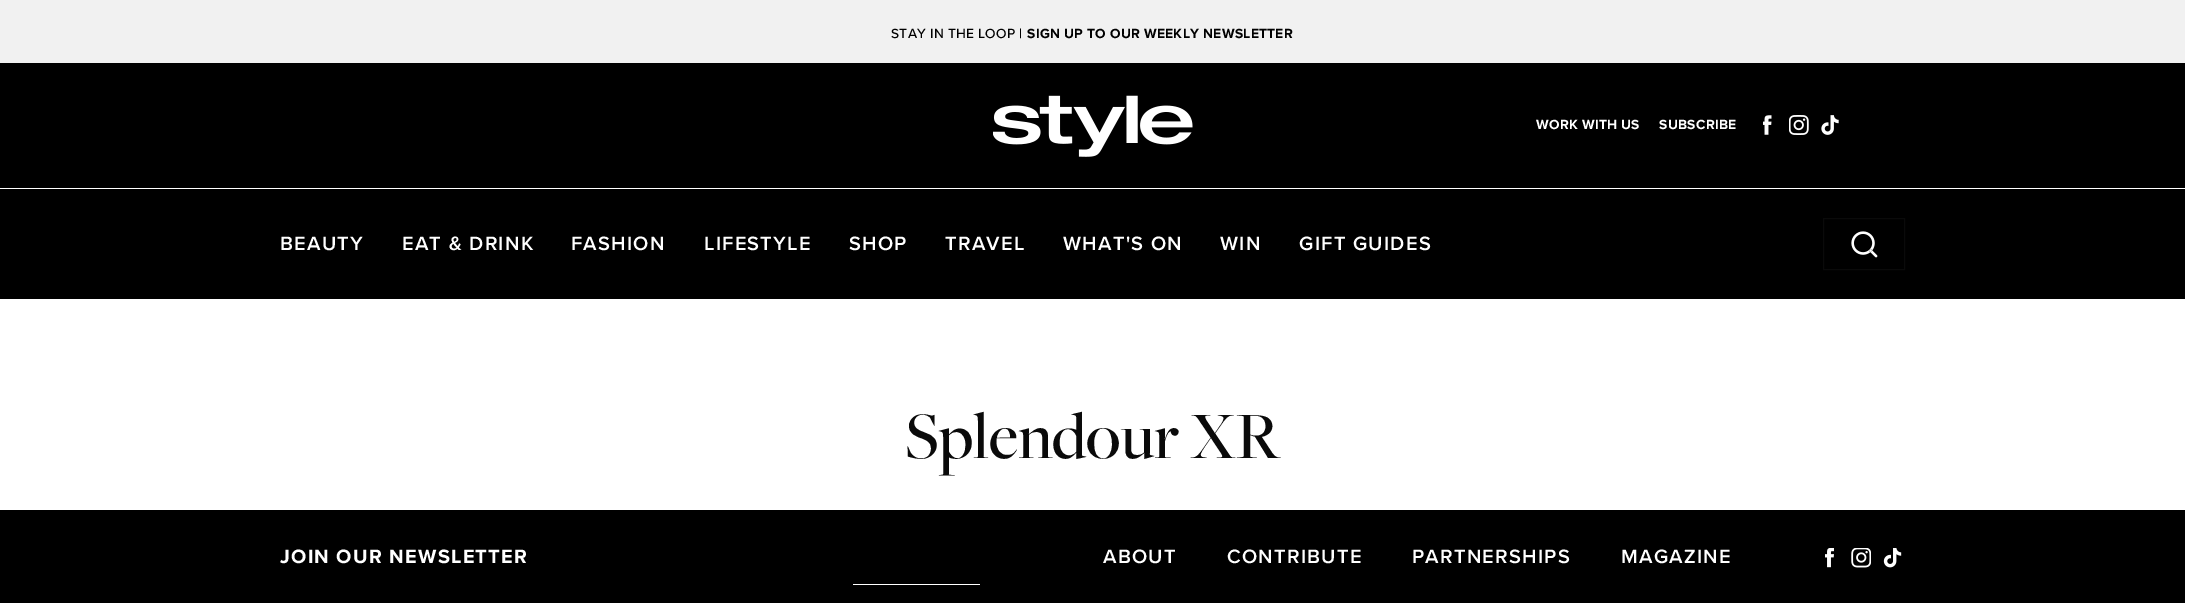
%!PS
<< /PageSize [2185 603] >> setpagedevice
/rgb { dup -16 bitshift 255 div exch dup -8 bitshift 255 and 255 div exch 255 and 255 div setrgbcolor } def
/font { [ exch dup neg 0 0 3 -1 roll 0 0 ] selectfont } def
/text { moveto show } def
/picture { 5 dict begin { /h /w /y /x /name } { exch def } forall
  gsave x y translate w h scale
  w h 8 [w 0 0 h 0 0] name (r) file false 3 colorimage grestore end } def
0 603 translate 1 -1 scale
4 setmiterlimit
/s1 { /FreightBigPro-Medium 68.75 font 16#0A0A0A rgb } def
16#FFFFFF rgb
0 0 2185 603 rectfill
16#000000 rgb
0 63 2185 236 rectfill
16#F1F1F1 rgb
0 0 2185 63 rectfill
/ProximaNova-Medium 13.75 font
16#000000 rgb
891 38 moveto 0.3 0 (STAY IN THE LOOP |) ashow
/ProximaNova-Bold 13.75 font
1027 38 moveto 0.3 0 (SIGN UP TO OUR WEEKLY NEWSLETTER) ashow
16#FFFFFF rgb
0 188 2185 1 rectfill
(pic1.raw) 993 95 200 62 picture
1536 129 moveto 0.3 0 (WORK WITH US) ashow
1659 129 moveto 0.3 0 (SUBSCRIBE) ashow
(pic2.raw) 1763 115 9 20 picture
(pic3.raw) 1789 115 20 20 picture
(pic4.raw) 1821 115 18 20 picture
/ProximaNova-SemiBold 20 font
280 250 moveto 1.25 0 (BEAUTY) ashow
402 250 moveto 1.25 0 (EAT & DRINK) ashow
571 250 moveto 1.25 0 (FASHION) ashow
704 250 moveto 1.25 0 (LIFESTYLE) ashow
849 250 moveto 1.25 0 (SHOP) ashow
945 250 moveto 1.25 0 (TRAVEL) ashow
1063 250 moveto 1.25 0 (WHAT'S ON) ashow
1220 250 moveto 1.25 0 (WIN) ashow
1299 250 moveto 1.25 0 (GIFT GUIDES) ashow
(pic5.raw) 1851 231 27 27 picture
16#0A0A0A rgb
1823.5 218.5 81 51 rectstroke
s1
(Splendour XR) 905 458 text
16#000000 rgb
0 510 2185 93 rectfill
/ProximaNova-Bold 20 font
16#FFFFFF rgb
280 563 moveto 1.25 0 (JOIN OUR NEWSLETTER) ashow
853 584 127 1 rectfill
/ProximaNova-SemiBold 20 font
1103 563 moveto 1.25 0 (ABOUT) ashow
1227 563 moveto 1.25 0 (CONTRIBUTE) ashow
1412 563 moveto 1.25 0 (PARTNERSHIPS) ashow
1621 563 moveto 1.25 0 (MAGAZINE) ashow
(pic6.raw) 1825 548 9 20 picture
(pic7.raw) 1851 548 20 20 picture
(pic8.raw) 1883 548 19 20 picture
showpage
